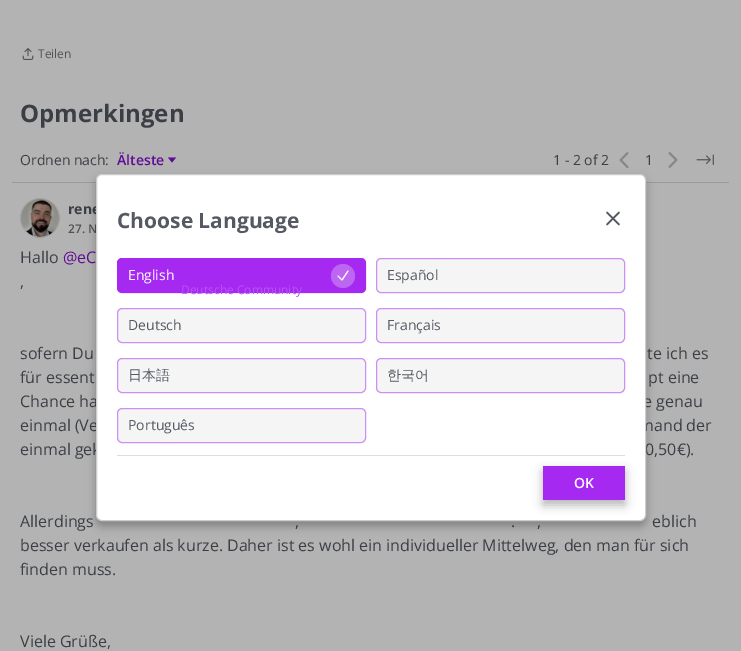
%!PS
<< /PageSize [741 651] /PageUsesTransparency true >> setpagedevice
/rgb { dup -16 bitshift 255 div exch dup -8 bitshift 255 and 255 div exch 255 and 255 div setrgbcolor } def
/font { [ exch dup neg 0 0 3 -1 roll 0 0 ] selectfont } def
/text { moveto show } def
/alpha { dup .setfillconstantalpha .setstrokeconstantalpha } def
/circle { newpath 0 360 arc closepath } def
/roundrect { 5 dict begin { /r /h /w /y /x } { exch def } forall
  x r add y moveto x w add y 2 copy h add r arct x w add y h add x 1 index r arct
  x y h add x y r arct x y 2 copy exch w add exch r arct closepath end } def
/shadow { 12 dict begin { /a /b /q /h /w /y /x } { exch def } forall gsave /was 0 def
  9 -2 -9 { dup b mul 4 div /e exch def 1 sub .425 mul 2.718 exch exp 1 add a .99 .min exch div /now exch def
    1 1 now sub 1 was sub div sub alpha /was now def
    w h .min e 2 mul add 0 gt { x e sub y e sub w e 2 mul add h e 2 mul add
      q e add b .6 mul add w h .min 2 div e add .min 0 .max roundrect fill } if } for grestore end } def
/picture { 5 dict begin { /h /w /y /x /name } { exch def } forall
  gsave x y translate w h scale
  w h 8 [w 0 0 h 0 0] name (r) file false 3 colorimage grestore end } def
0 .pushpdf14devicefilter
0 651 translate 1 -1 scale
4 setmiterlimit
/s1 { /OpenSans-Regular 12 font 16#535353 rgb } def
/s2 { /OpenSans-Bold 24 font 16#3B3F45 rgb } def
/s3 { /OpenSans-Regular 14 font 16#3B3F45 rgb } def
/s4 { /OpenSans-SemiBold 14 font 16#610B96 rgb } def
/s5 { /OpenSans-Bold 14 font 16#3B3F45 rgb } def
/s6 { /OpenSans-SemiBold 12 font 16#535353 rgb } def
/s7 { /OpenSans-Regular 16 font 16#3B3F45 rgb } def
/s8 { /OpenSans-Regular 16 font 16#610B96 rgb } def
/s9 { /OpenSans-Bold 21 font 16#555A62 rgb } def
/s10 { /OpenSans-Regular 14 font 16#FFFFFF rgb } def
/s11 { /OpenSans-Regular 14 font 16#555A62 rgb } def
/s12 { /OpenSans-Regular 12 font 16#B753F3 rgb } def
/s13 { /WenQuanYiZenHei-Medium 14 font 16#555A62 rgb } def
/s14 { /OpenSans-SemiBold 14 font 16#FFFFFF rgb } def
16#B3B3B3 rgb
0 0 741 651 rectfill
(pic1.raw) 22 48 12 12 picture
s1
(Teilen) 38 58 text
s2
(Opmerkingen) 20 122 text
s3
(Ordnen nach:) 20 165 text
s4
(Älteste) 117 165 text
168 157.5 moveto 176 157.5 lineto 172 162.5 lineto closepath fill
s3
(1 - 2 of 2) 553 165 text
(pic2.raw) 619 152 10 16 picture
(1) 645 165 text
(pic3.raw) 668 152 10 16 picture
(pic4.raw) 696 154 18 11 picture
16#9B9B9D rgb
12 182 717 1 rectfill
16#A1A1A2 rgb
40 218 19.5 circle stroke
(pic5.raw) 21 199 38 38 picture
s5
(rene) 68 214 text
s6
(27. N) 68 233 text
s7
(Hallo) 20 263 text
s8
(@eC) 63 263 text
s7
(,) 20 287 text
(sofern Du) 20 359 text
(te ich es) 647 359 text
(für essent) 20 383 text
(pt eine) 648 383 text
(Chance ha) 20 407 text
(e genau) 643 407 text
(einmal \(Ve) 20 431 text
(mand der) 639 431 text
(einmal gek) 20 455 text
(0,50€\).) 645 455 text
(Allerdings) 20 527 text
(,) 295 527 text
(.) 511 527 text
(,) 537 527 text
(eblich) 652 527 text
(besser verkaufen als kurze. Daher ist es wohl ein individueller Mittelweg, den man für sich) 20 551 text
(finden muss.) 20 575 text
(Viele Grüße,) 20 647 text
16#000000 rgb
96 179 550 347 6 5 0.3 shadow
16#FFFFFF rgb
96.5 174.5 549 346 5.5 roundrect gsave fill grestore
16#CCCCCC rgb
stroke
s9
(Choose Language) 117 228 text
1.5 setlinewidth
1 setlinecap
1 setlinejoin
607 224.5 moveto 619 212.5 lineto 607 212.5 moveto 619 224.5 lineto stroke
16#A529F0 rgb
117 258 249 35 5 roundrect fill
0.5 alpha
1 setlinewidth
0 setlinecap
0 setlinejoin
117.5 258.5 248 34 4.5 roundrect stroke
1 alpha
s10
(English) 128 280 text
16#BC66F1 rgb
343 276 12 circle fill
16#FFFFFF rgb
1 setlinecap
1 setlinejoin
338 276 moveto 342 280 lineto 348 271 lineto stroke
16#F5F5F6 rgb
376 258 249 35 5 roundrect fill
0.5 alpha
16#A529F0 rgb
0 setlinecap
0 setlinejoin
376.5 258.5 248 34 4.5 roundrect stroke
1 alpha
s11
(Español) 387 280 text
16#F5F5F6 rgb
117 308 249 35 5 roundrect fill
0.5 alpha
16#A529F0 rgb
117.5 308.5 248 34 4.5 roundrect stroke
1 alpha
s12
(Deutsche Community) 181 294 text
s11
(Deutsch) 128 330 text
16#F5F5F6 rgb
376 308 249 35 5 roundrect fill
0.5 alpha
16#A529F0 rgb
376.5 308.5 248 34 4.5 roundrect stroke
1 alpha
s11
(Français) 387 330 text
16#F5F5F6 rgb
117 358 249 35 5 roundrect fill
0.5 alpha
16#A529F0 rgb
117.5 358.5 248 34 4.5 roundrect stroke
1 alpha
s13
(日本語) 128 380 text
16#F5F5F6 rgb
376 358 249 35 5 roundrect fill
0.5 alpha
16#A529F0 rgb
376.5 358.5 248 34 4.5 roundrect stroke
1 alpha
s13
(한국어) 387 380 text
16#F5F5F6 rgb
117 408 249 35 5 roundrect fill
0.5 alpha
16#A529F0 rgb
117.5 408.5 248 34 4.5 roundrect stroke
1 alpha
s11
(Português) 128 430 text
16#DDDDDD rgb
117 455 508 1 rectfill
16#000000 rgb
543 471 82 34 0 5 0.3 shadow
16#A529F0 rgb
543 466 82 34 rectfill
s14
(OK) 574 488 text
.poppdf14devicefilter showpage
